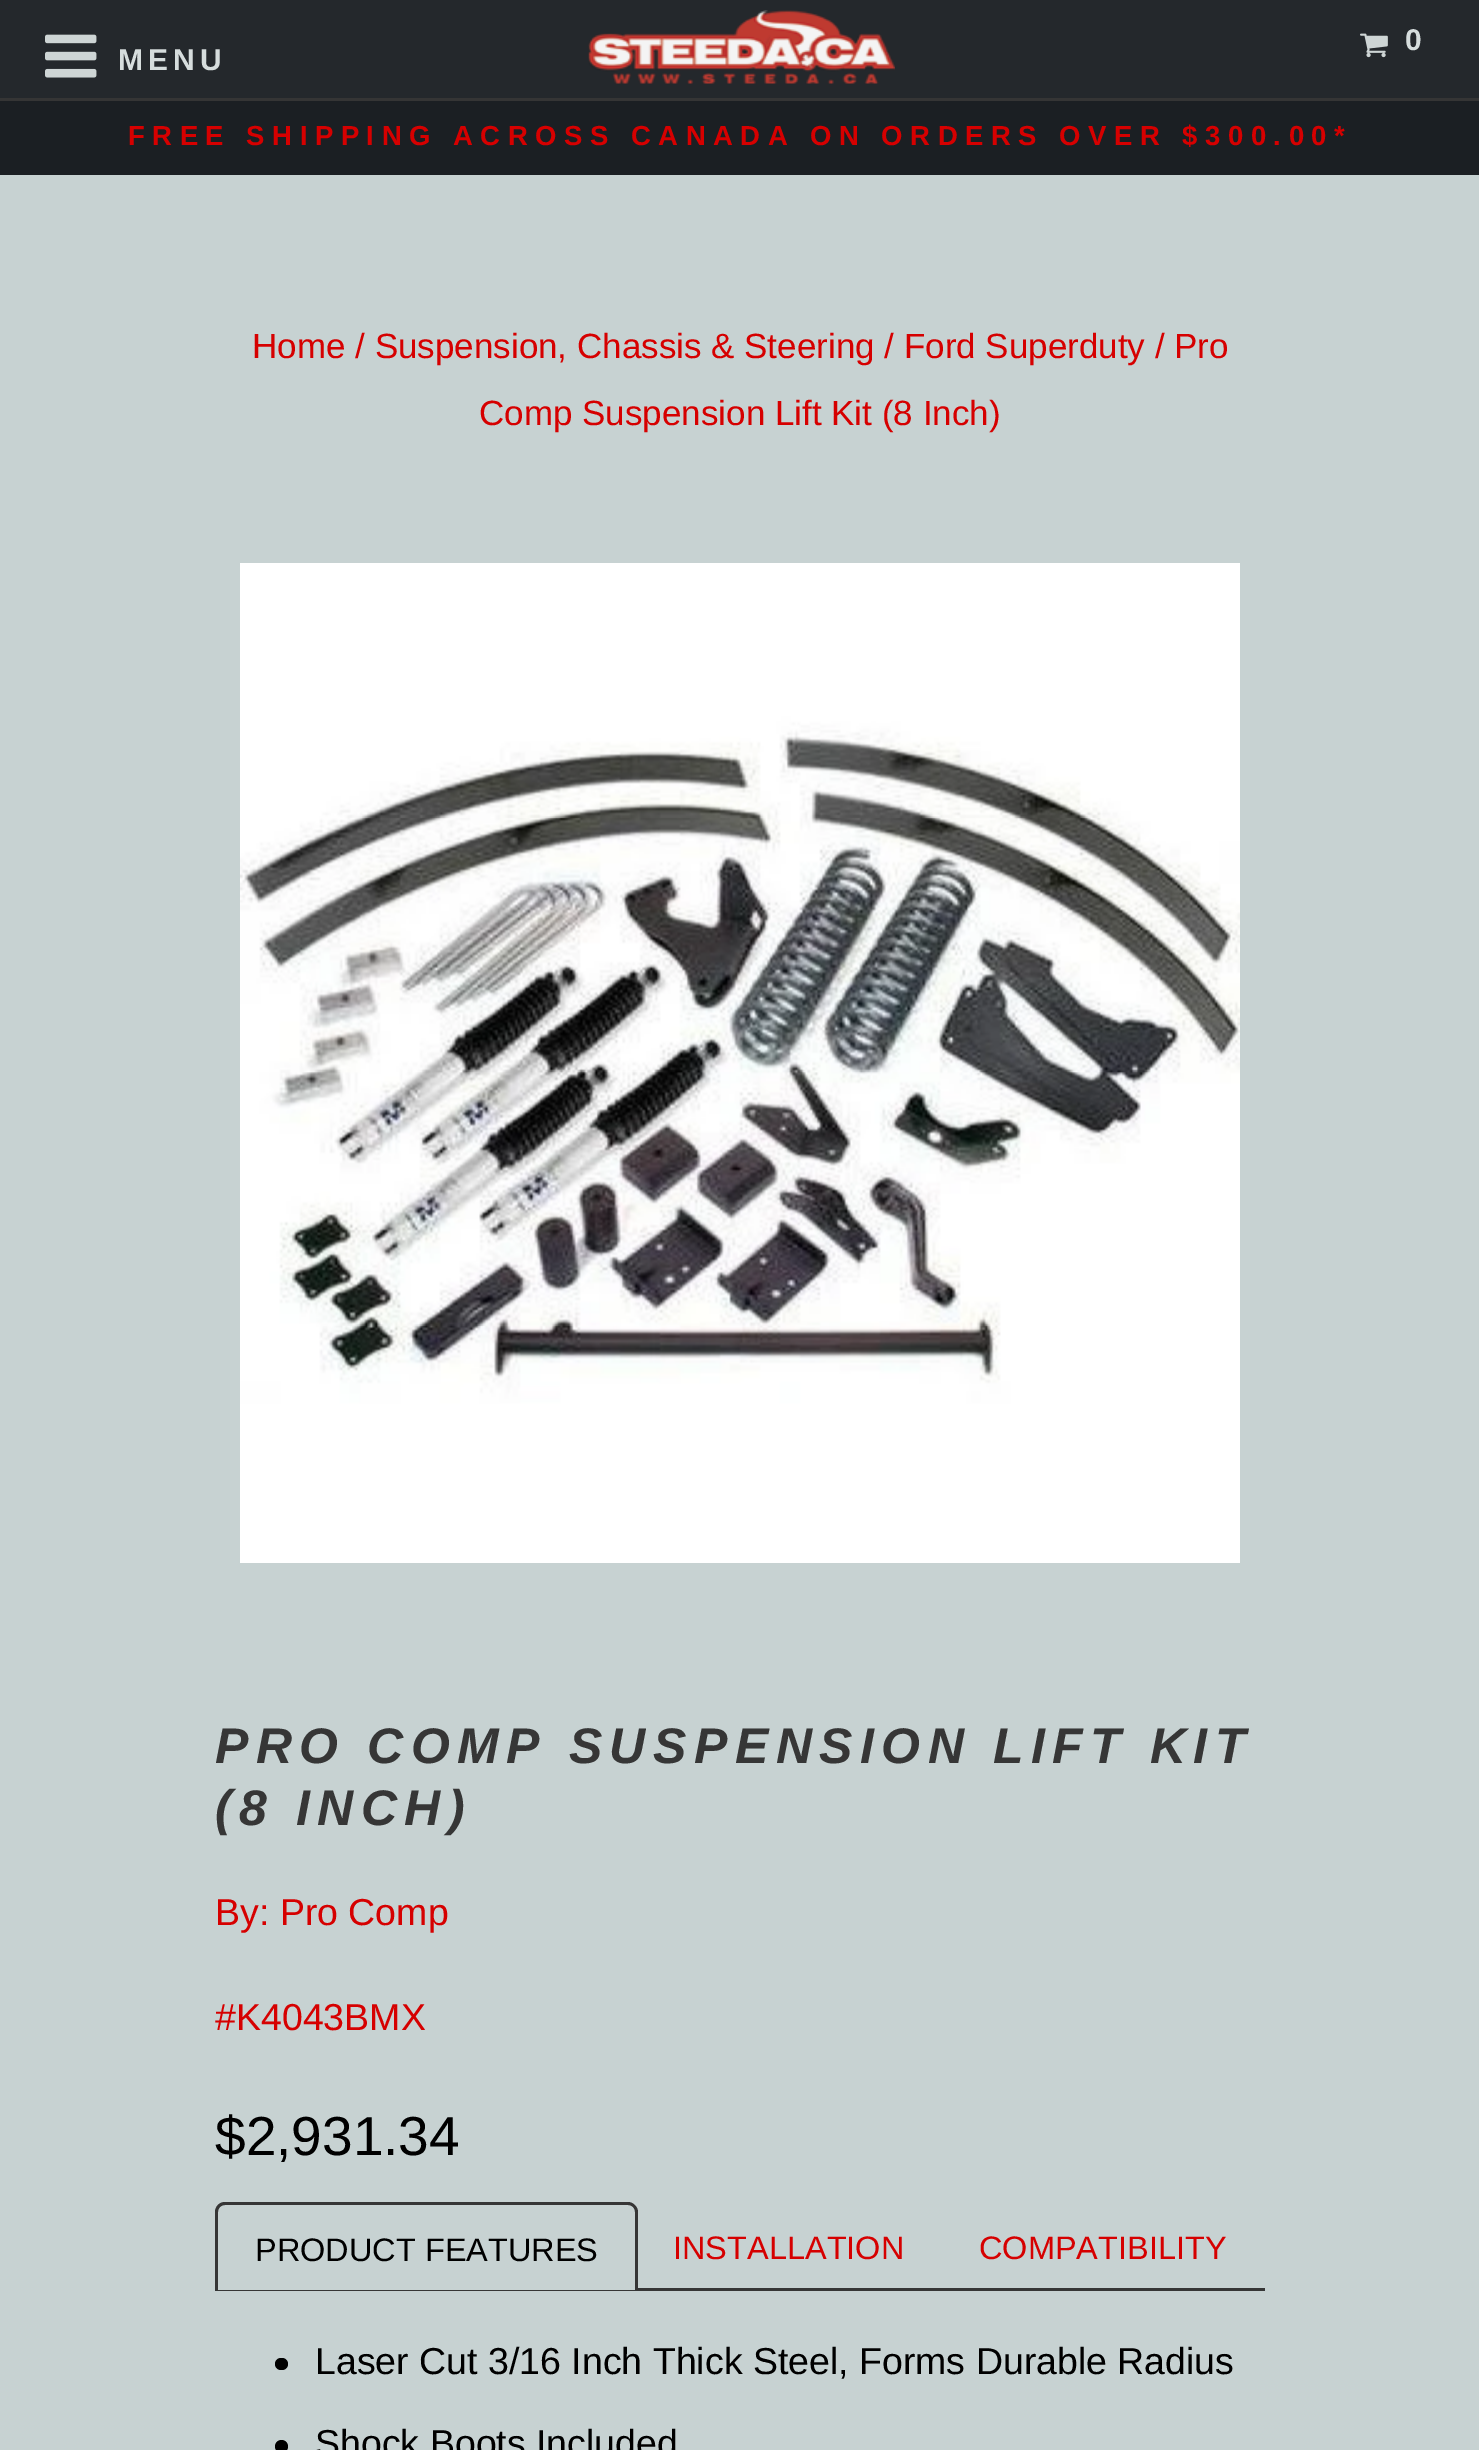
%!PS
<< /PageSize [1479 2450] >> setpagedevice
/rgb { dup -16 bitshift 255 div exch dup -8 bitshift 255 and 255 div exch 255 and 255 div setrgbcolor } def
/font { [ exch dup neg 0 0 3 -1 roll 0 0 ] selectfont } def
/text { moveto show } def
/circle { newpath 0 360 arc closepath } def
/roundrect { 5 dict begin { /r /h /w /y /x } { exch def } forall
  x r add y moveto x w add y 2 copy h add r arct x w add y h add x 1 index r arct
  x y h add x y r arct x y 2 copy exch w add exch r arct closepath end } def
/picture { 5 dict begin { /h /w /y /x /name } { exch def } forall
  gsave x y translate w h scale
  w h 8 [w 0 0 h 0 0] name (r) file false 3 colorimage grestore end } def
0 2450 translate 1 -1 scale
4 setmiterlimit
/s1 { /LiberationSans-Regular 35 font 16#D60000 rgb } def
/s2 { /LiberationSans-Regular 37.5 font 16#D60000 rgb } def
/s3 { /LiberationSans-Regular 55 font 16#000000 rgb } def
/s4 { /LiberationSans-Regular 32.5 font 16#000000 rgb } def
/s5 { /LiberationSans-Regular 32.5 font 16#D60000 rgb } def
/s6 { /LiberationSans-Regular 37.5 font 16#000000 rgb } def
16#C7D2D2 rgb
0 0 1479 2450 rectfill
16#24282C rgb
0 0 1479 98 rectfill
16#353535 rgb
0 98 1479 3 rectfill
(pic1.raw) 588 10 307 74 picture
(pic2.raw) 1360 33 28 25 picture
/LiberationSans-Bold 30 font
16#D6DDDD rgb
1405 50 moveto 5 0 (0) ashow
(pic3.raw) 45 34 52 44 picture
118 70 moveto 5 0 (MENU) ashow
s1
(Home / Suspension, Chassis & Steering / Ford Superduty / Pro) 252 358 text
(Comp Suspension Lift Kit \(8 Inch\)) 479 425 text
(pic4.raw) 240 563 1000 1000 picture
/LiberationSans-BoldItalic 50 font
16#363636 rgb
215 1763 moveto 7.5 0 (PRO COMP SUSPENSION LIFT KIT) ashow
215 1825 moveto 7.5 0 (\(8 INCH\)) ashow
s2
(By: Pro Comp) 215 1925 text
(#K4043BMX) 215 2030 text
s3
($2,931.34) 215 2155 text
16#363636 rgb
215 2288 1050 3 rectfill
16#C7D2D2 rgb
225 2203 moveto 628 2203 lineto 633.5 2203 638 2207.5 638 2213 curveto 638 2290 lineto 215 2290 lineto 215 2213 lineto 215 2207.5 219.5 2203 225 2203 curveto closepath fill
16#363636 rgb
225 2202 moveto 628 2202 lineto 633 2202 638 2207 638 2212 curveto 638 2290 lineto 215 2290 lineto 215 2212 lineto 215 2207 219 2202 225 2202 curveto closepath 225 2205 moveto 628 2205 lineto 632 2205 635 2208 635 2212 curveto 635 2290 lineto 218 2290 lineto 218 2212 lineto 218 2208 221 2205 225 2205 curveto closepath eofill
s4
(PRODUCT FEATURES) 255 2261 text
s5
(INSTALLATION) 673 2259 text
(COMPATIBILITY) 979 2259 text
16#000000 rgb
275 2358 13 12 6 roundrect fill
s6
(Laser Cut 3/16 Inch Thick Steel, Forms Durable Radius) 315 2374 text
281.5 2446.5 6.5 circle fill
(Shock Boots Included) 315 2456 text
16#1B1F23 rgb
0 101 1479 74 rectfill
/LiberationSans-Bold 27.5 font
16#D60000 rgb
128 145 moveto 7.5 0 (FREE SHIPPING ACROSS CANADA ON ORDERS OVER $300.00*) ashow
showpage
